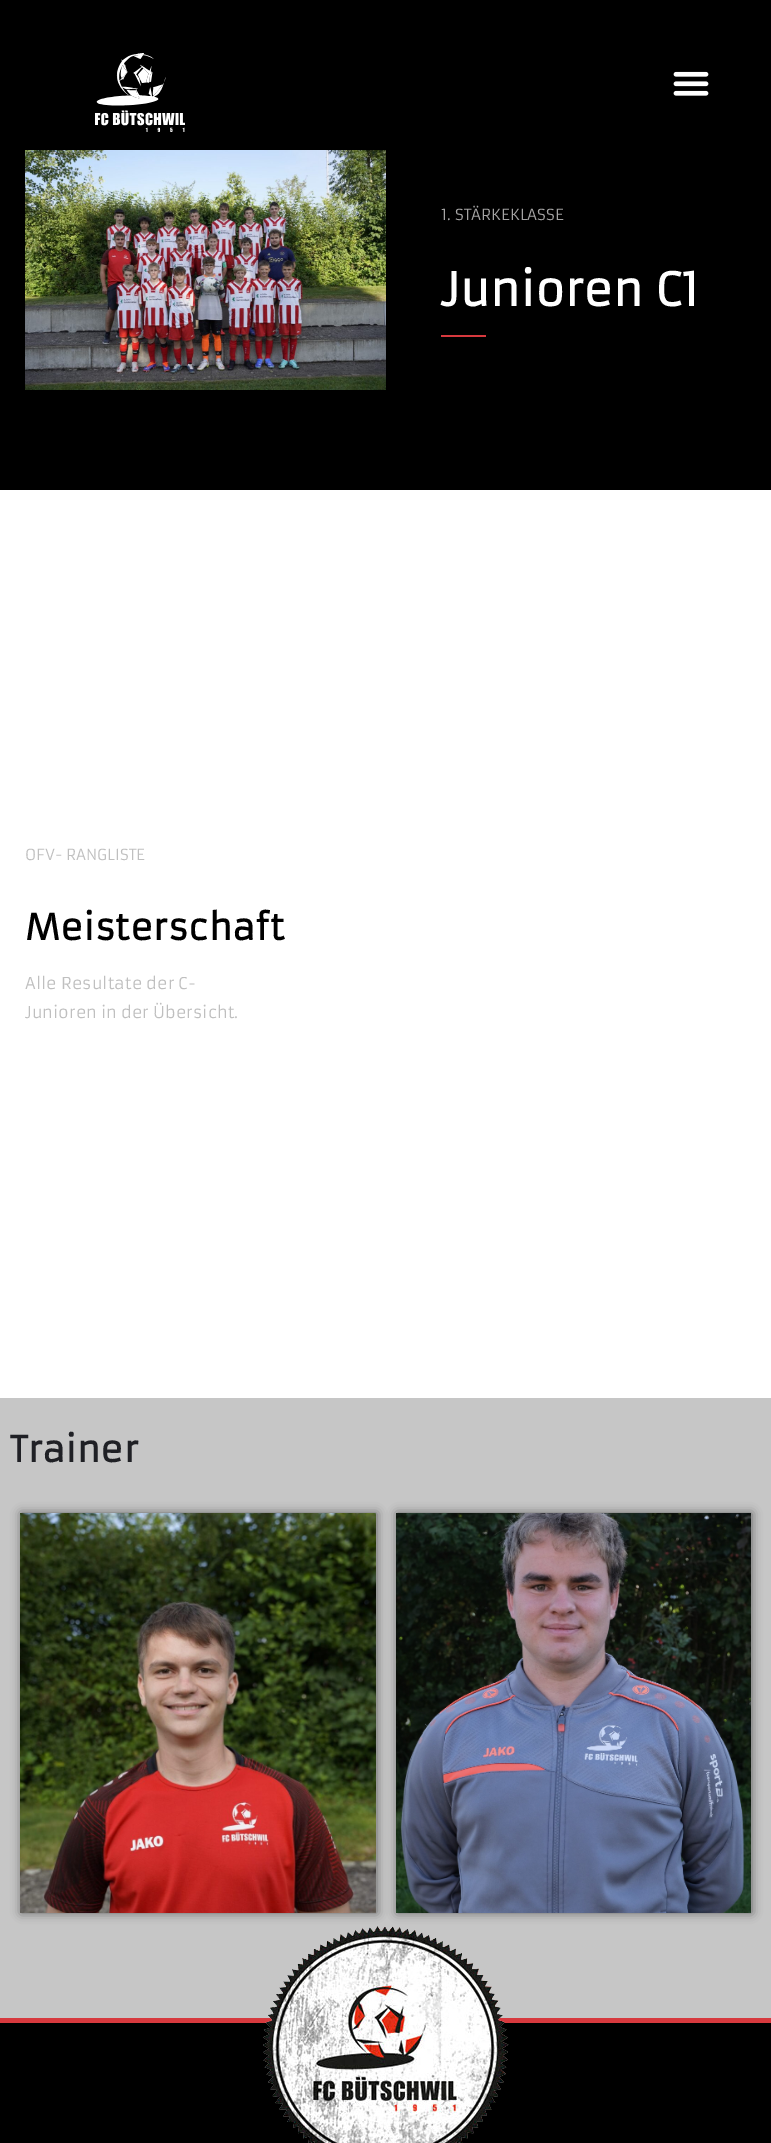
%!PS
<< /PageSize [771 2143] /PageUsesTransparency true >> setpagedevice
/rgb { dup -16 bitshift 255 div exch dup -8 bitshift 255 and 255 div exch 255 and 255 div setrgbcolor } def
/font { [ exch dup neg 0 0 3 -1 roll 0 0 ] selectfont } def
/text { moveto show } def
/alpha { dup .setfillconstantalpha .setstrokeconstantalpha } def
/roundrect { 5 dict begin { /r /h /w /y /x } { exch def } forall
  x r add y moveto x w add y 2 copy h add r arct x w add y h add x 1 index r arct
  x y h add x y r arct x y 2 copy exch w add exch r arct closepath end } def
/shadow { 12 dict begin { /a /b /q /h /w /y /x } { exch def } forall gsave /was 0 def
  9 -2 -9 { dup b mul 4 div /e exch def 1 sub .425 mul 2.718 exch exp 1 add a .99 .min exch div /now exch def
    1 1 now sub 1 was sub div sub alpha /was now def
    w h .min e 2 mul add 0 gt { x e sub y e sub w e 2 mul add h e 2 mul add
      q e add b .6 mul add w h .min 2 div e add .min 0 .max roundrect fill } if } for grestore end } def
/picture { 5 dict begin { /h /w /y /x /name } { exch def } forall
  gsave x y translate w h scale
  w h 8 [w 0 0 h 0 0] name (r) file false 3 colorimage grestore end } def
0 .pushpdf14devicefilter
0 2143 translate 1 -1 scale
4 setmiterlimit
/s1 { /Armata-Regular 15 font 16#A5A4A4 rgb } def
/s2 { /Armata-Bold 45 font 16#FFFFFF rgb } def
/s3 { /Armata-Regular 15 font 16#BFBFBF rgb } def
/s4 { /Armata-Bold 35 font 16#000000 rgb } def
/s5 { /Armata-Regular 16 font 16#BFBFBF rgb } def
/s6 { /Armata-Bold 35 font 16#1F2025 rgb } def
16#FFFFFF rgb
0 0 771 2143 rectfill
16#000000 rgb
0 0 771 490 rectfill
(pic1.raw) 95 53 90 79 picture
(pic2.raw) 673 71 36 25 picture
(pic3.raw) 25 150 361 240 picture
s1
(1. STÄRKEKLASSE) 441 220 text
s2
(Junioren C1) 441 306 text
16#D7393E rgb
441 335 45 2 rectfill
s3
(OFV- RANGLISTE) 25 860 text
s4
(Meisterschaft) 25 940 text
s5
(Alle Resultate der C-) 25 989 text
(Junioren in der Übersicht.) 25 1018 text
16#C6C6C6 rgb
0 1398 771 620 rectfill
s6
(Trainer) 10 1462 text
16#000000 rgb
21 1513 356 400 0 5 0.5 shadow
(pic4.raw) 20 1513 356 400 picture
397 1513 355 400 0 5 0.5 shadow
(pic5.raw) 396 1513 355 400 picture
0 2023 771 120 rectfill
16#D7393E rgb
0 2018 771 5 rectfill
(pic6.raw) 263 1926 246 217 picture
.poppdf14devicefilter showpage
